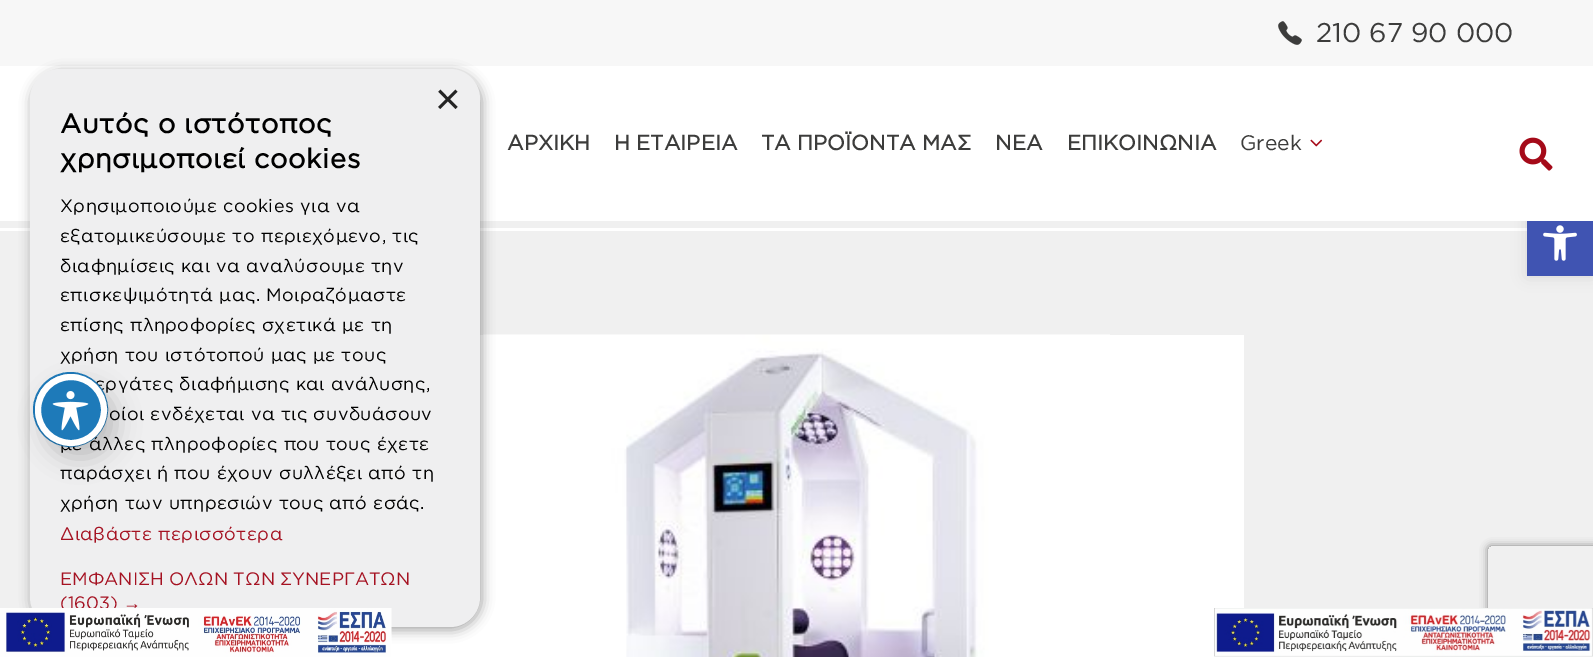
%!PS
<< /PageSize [1593 657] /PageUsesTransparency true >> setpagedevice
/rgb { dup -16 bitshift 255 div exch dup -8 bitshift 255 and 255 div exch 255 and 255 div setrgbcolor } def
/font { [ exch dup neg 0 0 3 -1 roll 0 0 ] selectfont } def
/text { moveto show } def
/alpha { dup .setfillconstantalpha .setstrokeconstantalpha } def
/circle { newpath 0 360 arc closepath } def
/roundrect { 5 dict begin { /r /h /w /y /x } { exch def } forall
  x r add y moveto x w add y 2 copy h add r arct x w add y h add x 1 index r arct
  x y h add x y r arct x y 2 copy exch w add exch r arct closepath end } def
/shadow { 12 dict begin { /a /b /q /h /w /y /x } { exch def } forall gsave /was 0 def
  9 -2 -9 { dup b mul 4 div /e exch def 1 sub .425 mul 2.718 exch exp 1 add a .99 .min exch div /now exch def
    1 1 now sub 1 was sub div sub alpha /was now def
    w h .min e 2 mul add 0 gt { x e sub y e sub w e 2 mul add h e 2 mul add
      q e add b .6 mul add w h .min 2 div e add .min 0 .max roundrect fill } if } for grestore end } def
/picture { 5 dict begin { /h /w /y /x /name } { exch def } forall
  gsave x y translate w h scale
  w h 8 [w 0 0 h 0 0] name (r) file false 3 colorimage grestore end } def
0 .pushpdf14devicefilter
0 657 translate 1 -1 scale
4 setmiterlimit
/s1 { /LiberationSans-Regular 44 font 16#242424 rgb } def
/s2 { /Gotham-Regular 18 font 16#A51222 rgb } def
/s3 { /LiberationSerif-Regular 18 font 16#A51222 rgb } def
/s4 { /Gotham-Regular 27 font 16#3C3C3B rgb } def
/s5 { /Gotham-Bold 21 font 16#3C3C3B rgb } def
/s6 { /Gotham-Regular 21 font 16#3C3C3B rgb } def
16#F0F0F0 rgb
0 0 1593 657 rectfill
16#FFFFFF rgb
0 228 1527 3 rectfill
16#000000 rgb
1527 210 66 66 0 7.5 0.1 shadow
16#FFFFFF rgb
0 66 1593 155 rectfill
16#F7F7F7 rgb
0 0 1593 66 rectfill
16#FFFFFF rgb
391 335 853 322 rectfill
(pic5.raw) 483 334 627 323 picture
16#000000 rgb
32 72 450 558 30 6 0.35 shadow
16#EFEFF0 rgb
30 69 450 558 30 roundrect fill
s1
(×) 435 114 text
/Gotham-Bold 27 font
16#000000 rgb
60 133 moveto 0.6 0 (Αυτός ο ιστότοπος) ashow
60 168 moveto 0.6 0 (χρησιμοποιεί cookies) ashow
/Gotham-Regular 18 font
60 212 moveto 0.45 0 (Χρησιμοποιούμε cookies για να) ashow
60 242 moveto 0.45 0 (εξατομικεύσουμε το περιεχόμενο, τις) ashow
60 272 moveto 0.45 0 (διαφημίσεις και να αναλύσουμε την) ashow
60 301 moveto 0.45 0 (επισκεψιμότητά μας. Μοιραζόμαστε) ashow
60 331 moveto 0.45 0 (επίσης πληροφορίες σχετικά με τη) ashow
60 361 moveto 0.45 0 (χρήση του ιστότοπού μας με τους) ashow
95 390 moveto 0.45 0 (εργάτες διαφήμισης και ανάλυσης,) ashow
109 420 moveto 0.45 0 (οίοι ενδέχεται να τις συνδυάσουν) ashow
60 450 moveto 0.45 0 (με άλλες πληροφορίες που τους έχετε) ashow
60 479 moveto 0.45 0 (παράσχει ή που έχουν συλλέξει από τη) ashow
60 509 moveto 0.45 0 (χρήση των υπηρεσιών τους από εσάς.) ashow
16#A51222 rgb
60 540 moveto 0.45 0 (Διαβάστε περισσότερα) ashow
(ΕΜΦΑΝΙΣΗ ΟΛΩΝ ΤΩΝ ΣΥΝΕΡΓΑΤΩΝ) 60 585 text
(\(1603\)) 60 609 text
s3
(→) 123 609 text
(pic1.raw) 1278 21 24 24 picture
s4
(210 67 90 000) 1316 42 text
s5
(ΑΡΧΙΚΗ) 507 150 text
(Η ΕΤΑΙΡΕΙΑ) 614 150 text
(ΤΑ ΠΡΟΪΟΝΤΑ ΜΑΣ) 761 150 text
(ΝΕΑ) 995 150 text
(ΕΠΙΚΟΙΝΩΝΙΑ) 1067 150 text
s6
(Greek) 1240 150 text
(pic2.raw) 1310 139 13 8 picture
(pic3.raw) 1519 137 34 34 picture
16#4054B2 rgb
1527 221 66 55 rectfill
(pic4.raw) 1543 225 34 36 picture
16#1E7AB9 rgb
2 setlinewidth
70.5 409.5 36.5 circle stroke
16#000000 rgb
44 386 72 72 36 12 0.2 shadow
16#1E7AB9 rgb
71 410 33 circle gsave fill grestore
16#FFFFFF rgb
6 setlinewidth
stroke
(pic6.raw) 52 391 37 40 picture
(pic7.raw) 0 608 392 49 picture
gsave
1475 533 moveto 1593 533 lineto 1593 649 lineto 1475 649 lineto closepath 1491 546 moveto 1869 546 lineto 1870.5 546 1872 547.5 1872 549 curveto 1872 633 lineto 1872 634.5 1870.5 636 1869 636 curveto 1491 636 lineto 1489.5 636 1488 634.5 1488 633 curveto 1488 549 lineto 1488 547.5 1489.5 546 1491 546 curveto closepath eoclip newpath
16#808080 rgb
1488 546 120 90 3 4 1 shadow
grestore
(pic8.raw) 1214 608 379 49 picture
.poppdf14devicefilter showpage
